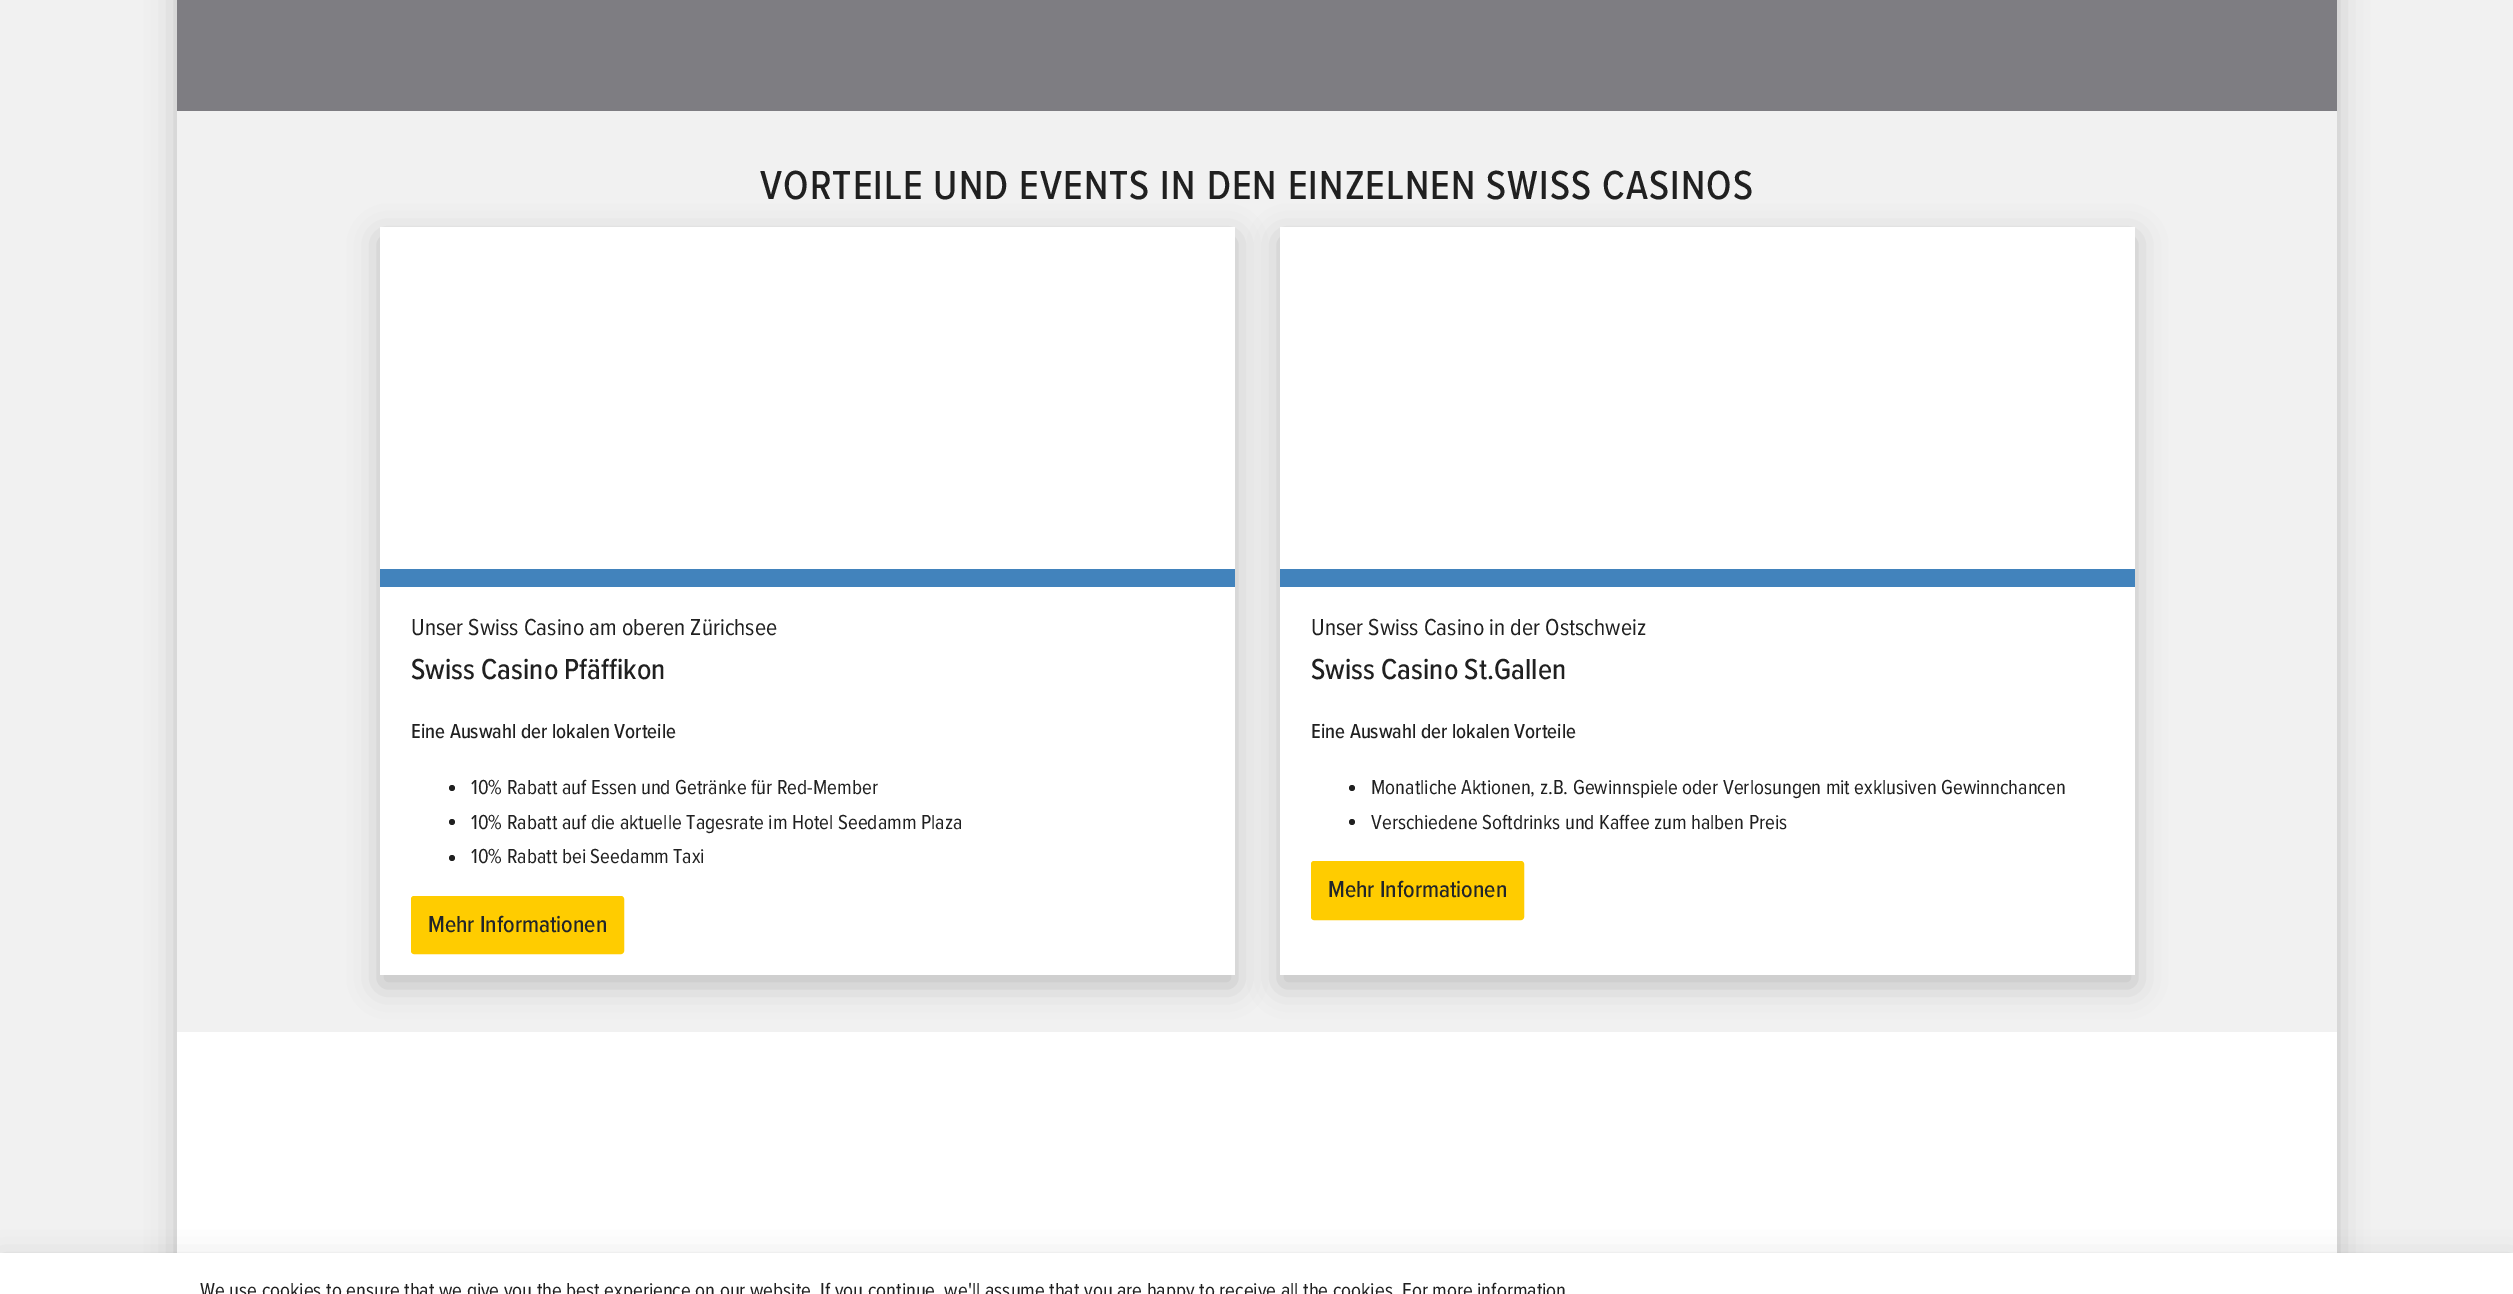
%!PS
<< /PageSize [2513 1294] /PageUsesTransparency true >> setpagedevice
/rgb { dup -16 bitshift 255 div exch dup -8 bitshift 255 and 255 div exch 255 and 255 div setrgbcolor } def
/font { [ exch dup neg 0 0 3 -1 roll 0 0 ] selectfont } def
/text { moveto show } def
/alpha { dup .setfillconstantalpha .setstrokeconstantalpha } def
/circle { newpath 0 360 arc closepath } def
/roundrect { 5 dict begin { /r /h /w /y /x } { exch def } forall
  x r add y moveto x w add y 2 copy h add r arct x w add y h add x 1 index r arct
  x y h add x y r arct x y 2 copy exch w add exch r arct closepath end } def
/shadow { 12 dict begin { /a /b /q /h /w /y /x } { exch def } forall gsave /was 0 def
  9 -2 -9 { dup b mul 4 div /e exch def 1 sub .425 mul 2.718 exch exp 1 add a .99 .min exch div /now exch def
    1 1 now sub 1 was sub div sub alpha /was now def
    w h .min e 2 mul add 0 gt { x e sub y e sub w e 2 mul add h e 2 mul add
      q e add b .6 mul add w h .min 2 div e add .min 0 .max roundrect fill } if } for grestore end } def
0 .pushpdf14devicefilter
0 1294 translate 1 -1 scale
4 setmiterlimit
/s1 { /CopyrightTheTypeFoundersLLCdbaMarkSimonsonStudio-Regular 24 font 16#202020 rgb } def
/s2 { /CopyrightTheTypeFoundersLLCdbaMarkSimonsonStudio-Medium 30 font 16#202020 rgb } def
/s3 { /CopyrightTheTypeFoundersLLCdbaMarkSimonsonStudio-Medium 21 font 16#202020 rgb } def
/s4 { /CopyrightTheTypeFoundersLLCdbaMarkSimonsonStudio-Regular 21 font 16#202020 rgb } def
/s5 { /CopyrightTheTypeFoundersLLCdbaMarkSimonsonStudio-Medium 24 font 16#212529 rgb } def
16#F1F1F1 rgb
0 0 2513 1294 rectfill
16#000000 rgb
177 -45 2160 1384 0 15 0.2 shadow
16#FFFFFF rgb
177 1032 2160 221 rectfill
16#7E7D82 rgb
177 0 2160 111 rectfill
16#F1F1F1 rgb
177 111 2160 921 rectfill
/CopyrightTheTypeFoundersLLCdbaMarkSimonsonStudio-Medium 42 font
16#202020 rgb
760 199 moveto 1.05 0 (VORTEILE UND EVENTS IN DEN EINZELNEN SWISS CASINOS) ashow
16#000000 rgb
380 237 855 749 0 15 0.2 shadow
16#FFFFFF rgb
380 227 855 748 rectfill
16#4283BC rgb
380 569 855 18 rectfill
s1
(Unser Swiss Casino am oberen Zürichsee) 411 635 text
s2
(Swiss Casino Pfäffikon) 411 679 text
s3
(Eine Auswahl der lokalen Vorteile) 411 738 text
452 788 3 circle fill
s4
(10% Rabatt auf Essen und Getränke für Red-Member) 471 794 text
452 822 3 circle fill
(10% Rabatt auf die aktuelle Tagesrate im Hotel Seedamm Plaza) 471 829 text
452 858 3 circle fill
(10% Rabatt bei Seedamm Taxi) 471 863 text
16#FFCC00 rgb
412 897 211 56 2 roundrect gsave fill grestore
2 setlinewidth
stroke
s5
(Mehr Informationen) 428 932 text
16#000000 rgb
1280 237 855 749 0 15 0.2 shadow
16#FFFFFF rgb
1280 227 855 748 rectfill
16#4283BC rgb
1280 569 855 18 rectfill
s1
(Unser Swiss Casino in der Ostschweiz) 1311 635 text
s2
(Swiss Casino St.Gallen) 1311 679 text
s3
(Eine Auswahl der lokalen Vorteile) 1311 738 text
1352 788 3 circle fill
s4
(Monatliche Aktionen, z.B. Gewinnspiele oder Verlosungen mit exklusiven Gewinnchancen) 1371 794 text
1352 822 3 circle fill
(Verschiedene Softdrinks und Kaffee zum halben Preis) 1371 829 text
16#FFCC00 rgb
1312 862 211 57 2 roundrect gsave fill grestore
stroke
s5
(Mehr Informationen) 1328 897 text
16#000000 rgb
0 1263 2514 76 0 15 0.2 shadow
16#FFFFFF rgb
0 1253 2513 41 rectfill
s4
(We use cookies to ensure that we give you the best experience on our website. If you continue, we'll assume that you are happy to receive all the cookies. For more information) 200 1297 text
.poppdf14devicefilter showpage
